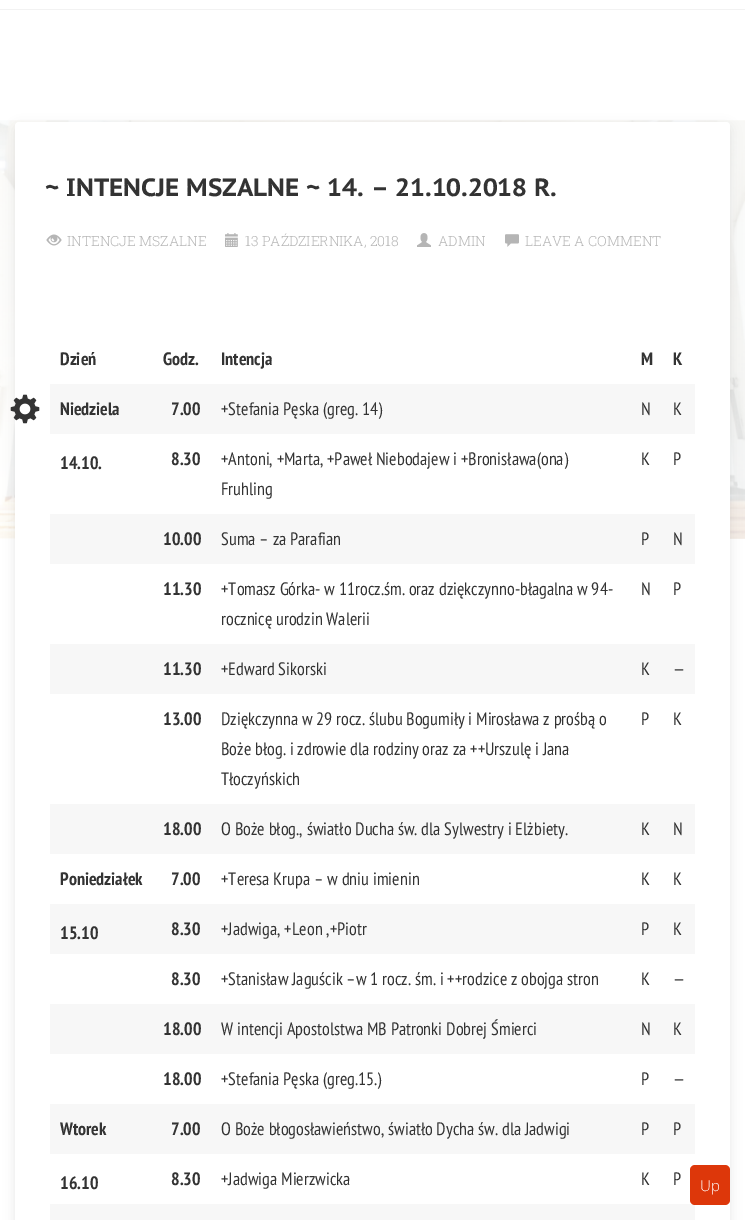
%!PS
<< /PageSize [745 1220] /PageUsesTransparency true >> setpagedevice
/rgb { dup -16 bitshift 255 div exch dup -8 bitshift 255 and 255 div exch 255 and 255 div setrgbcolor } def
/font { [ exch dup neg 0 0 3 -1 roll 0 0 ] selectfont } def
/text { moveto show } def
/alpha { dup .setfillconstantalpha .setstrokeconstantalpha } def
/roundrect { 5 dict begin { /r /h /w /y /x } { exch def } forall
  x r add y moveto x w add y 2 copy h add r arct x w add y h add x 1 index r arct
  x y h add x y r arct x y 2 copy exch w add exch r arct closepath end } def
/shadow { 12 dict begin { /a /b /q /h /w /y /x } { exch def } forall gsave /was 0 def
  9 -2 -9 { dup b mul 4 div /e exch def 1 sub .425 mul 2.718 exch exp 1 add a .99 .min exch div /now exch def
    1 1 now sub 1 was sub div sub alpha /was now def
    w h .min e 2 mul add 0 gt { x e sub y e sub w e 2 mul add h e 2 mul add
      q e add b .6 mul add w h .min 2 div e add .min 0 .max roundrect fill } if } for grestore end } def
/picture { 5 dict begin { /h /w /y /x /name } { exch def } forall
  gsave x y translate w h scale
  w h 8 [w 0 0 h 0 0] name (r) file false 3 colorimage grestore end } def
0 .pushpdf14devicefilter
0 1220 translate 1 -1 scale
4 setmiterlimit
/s1 { /PTSansCaption-Bold 25 font 16#333333 rgb } def
/s2 { /RobotoSlab-Light 14 font 16#B5B5B5 rgb } def
/s3 { /PTSansNarrow-Bold 18 font 16#333333 rgb } def
/s4 { /PTSansNarrow-Regular 18 font 16#333333 rgb } def
/s5 { /OpenSans-Light 15 font 16#FFFFFF rgb } def
16#FFFFFF rgb
0 0 745 1220 rectfill
(pic1.raw) 0 120 745 419 picture
16#F2F2F2 rgb
0 9 745 1 rectfill
16#000000 rgb
15 126 715 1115 4 5.5 0.09 shadow
16#FFFFFF rgb
15 122 715 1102 4 roundrect fill
(pic2.raw) 10 394 30 30 picture
s1
(~ INTENCJE MSZALNE ~ 14. – 21.10.2018 R.) 45 196 text
(pic3.raw) 46 234 16 12 picture
s2
(INTENCJE MSZALNE) 67 246 text
(pic4.raw) 225 233 13 14 picture
(13 PAŹDZIERNIKA, 2018) 245 246 text
(pic5.raw) 417 233 14 14 picture
(ADMIN) 438 246 text
(pic6.raw) 505 234 14 13 picture
(LEAVE A COMMENT) 525 246 text
s3
(Dzień) 60 365 text
(Godz.) 163 365 text
(Intencja) 221 365 text
(M) 641 365 text
(K) 673 365 text
16#F7F7F7 rgb
50 384 645 50 rectfill
s3
(Niedziela) 60 415 text
(14.10.) 60 469 text
(7.00) 171 415 text
s4
(+Stefania Pęska \(greg. 14\)) 221 415 text
(N) 641 415 text
(K) 673 415 text
s3
(8.30) 171 465 text
s4
(+Antoni, +Marta, +Paweł Niebodajew i +Bronisława\(ona\)) 221 465 text
(Fruhling) 221 495 text
(K) 641 465 text
(P) 673 465 text
16#F7F7F7 rgb
50 514 645 50 rectfill
s3
(10.00) 163 545 text
s4
(Suma – za Parafian) 221 545 text
(P) 641 545 text
(N) 673 545 text
s3
(11.30) 163 595 text
s4
(+Tomasz Górka- w 11rocz.śm. oraz dziękczynno-błagalna w 94-) 221 595 text
(rocznicę urodzin Walerii) 221 625 text
(N) 641 595 text
(P) 673 595 text
16#F7F7F7 rgb
50 644 645 50 rectfill
s3
(11.30) 163 675 text
s4
(+Edward Sikorski) 221 675 text
(K) 641 675 text
(—) 673 675 text
s3
(13.00) 163 725 text
s4
(Dziękczynna w 29 rocz. ślubu Bogumiły i Mirosława z prośbą o) 221 725 text
(Boże błog. i zdrowie dla rodziny oraz za ++Urszulę i Jana) 221 755 text
(Tłoczyńskich) 221 785 text
(P) 641 725 text
(K) 673 725 text
16#F7F7F7 rgb
50 804 645 50 rectfill
s3
(18.00) 163 835 text
s4
(O Boże błog., światło Ducha św. dla Sylwestry i Elżbiety.) 221 835 text
(K) 641 835 text
(N) 673 835 text
s3
(Poniedziałek) 60 885 text
16#F7F7F7 rgb
50 904 645 50 rectfill
s3
(15.10) 60 939 text
(7.00) 171 885 text
s4
(+Teresa Krupa – w dniu imienin) 221 885 text
(K) 641 885 text
(K) 673 885 text
s3
(8.30) 171 935 text
s4
(+Jadwiga, +Leon ,+Piotr) 221 935 text
(P) 641 935 text
(K) 673 935 text
s3
(8.30) 171 985 text
s4
(+Stanisław Jaguścik –w 1 rocz. śm. i ++rodzice z obojga stron) 221 985 text
(K) 641 985 text
(—) 673 985 text
16#F7F7F7 rgb
50 1004 645 50 rectfill
s3
(18.00) 163 1035 text
s4
(W intencji Apostolstwa MB Patronki Dobrej Śmierci) 221 1035 text
(N) 641 1035 text
(K) 673 1035 text
s3
(18.00) 163 1085 text
s4
(+Stefania Pęska \(greg.15.\)) 221 1085 text
(P) 641 1085 text
(—) 673 1085 text
16#F7F7F7 rgb
50 1104 645 50 rectfill
s3
(Wtorek) 60 1135 text
(16.10) 60 1189 text
(7.00) 171 1135 text
s4
(O Boże błogosławieństwo, światło Dycha św. dla Jadwigi) 221 1135 text
(P) 641 1135 text
(P) 673 1135 text
s3
(8.30) 171 1185 text
s4
(+Jadwiga Mierzwicka) 221 1185 text
(K) 641 1185 text
(P) 673 1185 text
16#F7F7F7 rgb
50 1204 645 16 rectfill
16#DD370A rgb
690 1165 40 40 5 roundrect fill
s5
(Up) 700 1191 text
.poppdf14devicefilter showpage
